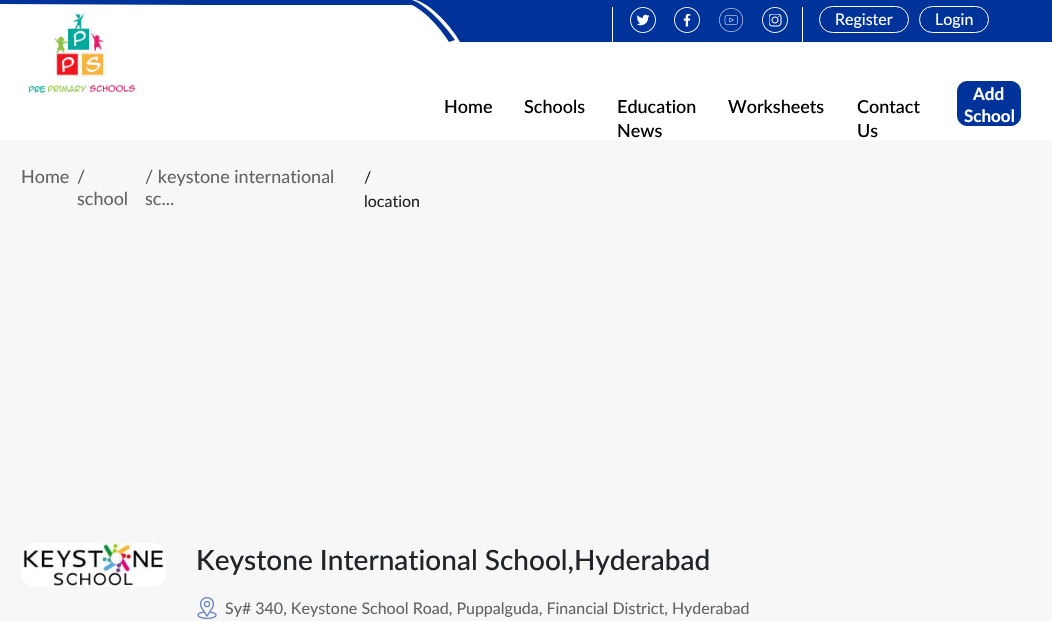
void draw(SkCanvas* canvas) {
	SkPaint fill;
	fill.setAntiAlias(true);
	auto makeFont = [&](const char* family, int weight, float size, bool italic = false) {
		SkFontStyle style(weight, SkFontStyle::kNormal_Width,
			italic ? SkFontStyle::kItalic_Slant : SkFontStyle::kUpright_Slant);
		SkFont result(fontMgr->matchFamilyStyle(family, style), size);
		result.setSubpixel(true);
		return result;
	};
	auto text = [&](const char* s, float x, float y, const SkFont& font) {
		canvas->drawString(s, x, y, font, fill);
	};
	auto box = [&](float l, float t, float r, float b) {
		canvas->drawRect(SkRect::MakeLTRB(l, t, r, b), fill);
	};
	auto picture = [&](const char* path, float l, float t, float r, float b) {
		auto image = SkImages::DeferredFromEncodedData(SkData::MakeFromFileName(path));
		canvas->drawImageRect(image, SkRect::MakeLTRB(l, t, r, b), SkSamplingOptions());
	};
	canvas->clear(0xFFFFFFFF);
	fill.setColor(0xFF003399);
	canvas->drawPath(SkPathBuilder().moveTo(412, 0).lineTo(0, 0).lineTo(0, 4).lineTo(205, 5).lineTo(412, 5).cubicTo(428, 13, 443, 32, 449, 42).lineTo(455, 40).cubicTo(436, 13, 419, 2, 412, 0).close().detach(), fill);
	canvas->drawPath(SkPathBuilder().moveTo(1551, 0).lineTo(415, 0).cubicTo(431, 3, 453, 29, 460, 42).lineTo(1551, 42).close().detach(), fill);
	fill.setColor(0xFFFFFFFF);
	box(612, 7, 613, 42);
	picture("image0.png", 630, 7, 656, 33);
	picture("image1.png", 674, 7, 700, 33);
	picture("image2.png", 719, 8, 744, 32);
	picture("image3.png", 762, 7, 788, 33);
	box(802, 7, 803, 42);
	fill.setStyle(SkPaint::kStroke_Style);
	fill.setStrokeWidth(1);
	canvas->drawRoundRect(SkRect::MakeLTRB(819.5f, 6.5f, 908.5f, 32.5f), 13, 13, fill);
	canvas->drawRoundRect(SkRect::MakeLTRB(919.5f, 6.5f, 988.5f, 32.5f), 13, 13, fill);
	picture("image4.png", 28, 13, 137, 94);
	fill.setStyle(SkPaint::kFill_Style);
	fill.setColor(0xFF003399);
	canvas->drawRoundRect(SkRect::MakeLTRB(957.5f, 81.5f, 1020.5f, 125.5f), 9.5f, 9.5f, fill);
	fill.setStyle(SkPaint::kStroke_Style);
	canvas->drawRoundRect(SkRect::MakeLTRB(957.5f, 81.5f, 1020.5f, 125.5f), 9.5f, 9.5f, fill);
	fill.setStyle(SkPaint::kFill_Style);
	fill.setColor(0xFFF7F7F7);
	box(0, 140, 1052, 621);
	picture("image5.png", 21, 543, 166, 587);
	picture("image6.png", 197, 597, 217, 619);
	auto font1 = makeFont("Lato", 400, 16);
	fill.setColor(0xFFFFFFFF);
	text("Register", 835, 25, font1);
	text("Login", 935, 25, font1);
	auto font2 = makeFont("Lato", 500, 18);
	fill.setColor(0xFF000000);
	text("Home", 444, 113, font2);
	text("Schools", 524, 113, font2);
	text("Education", 617, 113, font2);
	text("News", 617, 137, font2);
	text("Worksheets", 728, 113, font2);
	text("Contact", 857, 113, font2);
	text("Us", 857, 137, font2);
	auto font3 = makeFont("Lato", 700, 17);
	fill.setColor(0xFFFFFFFF);
	text("Add", 973, 100, font3);
	text("School", 964, 122, font3);
	auto font4 = makeFont("Lato", 400, 18);
	fill.setColor(0xFF636363);
	text("Home", 21, 183, font4);
	text("/", 77, 183, font4);
	text("school", 77, 205, font4);
	text("/ keystone international", 145, 183, font4);
	text("sc...", 145, 205, font4);
	fill.setColor(0xFF212529);
	text("/", 364, 183, font1);
	text("location", 364, 207, font1);
	auto font5 = makeFont("Lato", 500, 28);
	text("Keystone International School,Hyderabad", 196, 570, font5);
	fill.setColor(0xFF636363);
	text("Sy# 340, Keystone School Road, Puppalguda, Financial District, Hyderabad", 225, 614, font1);
}
